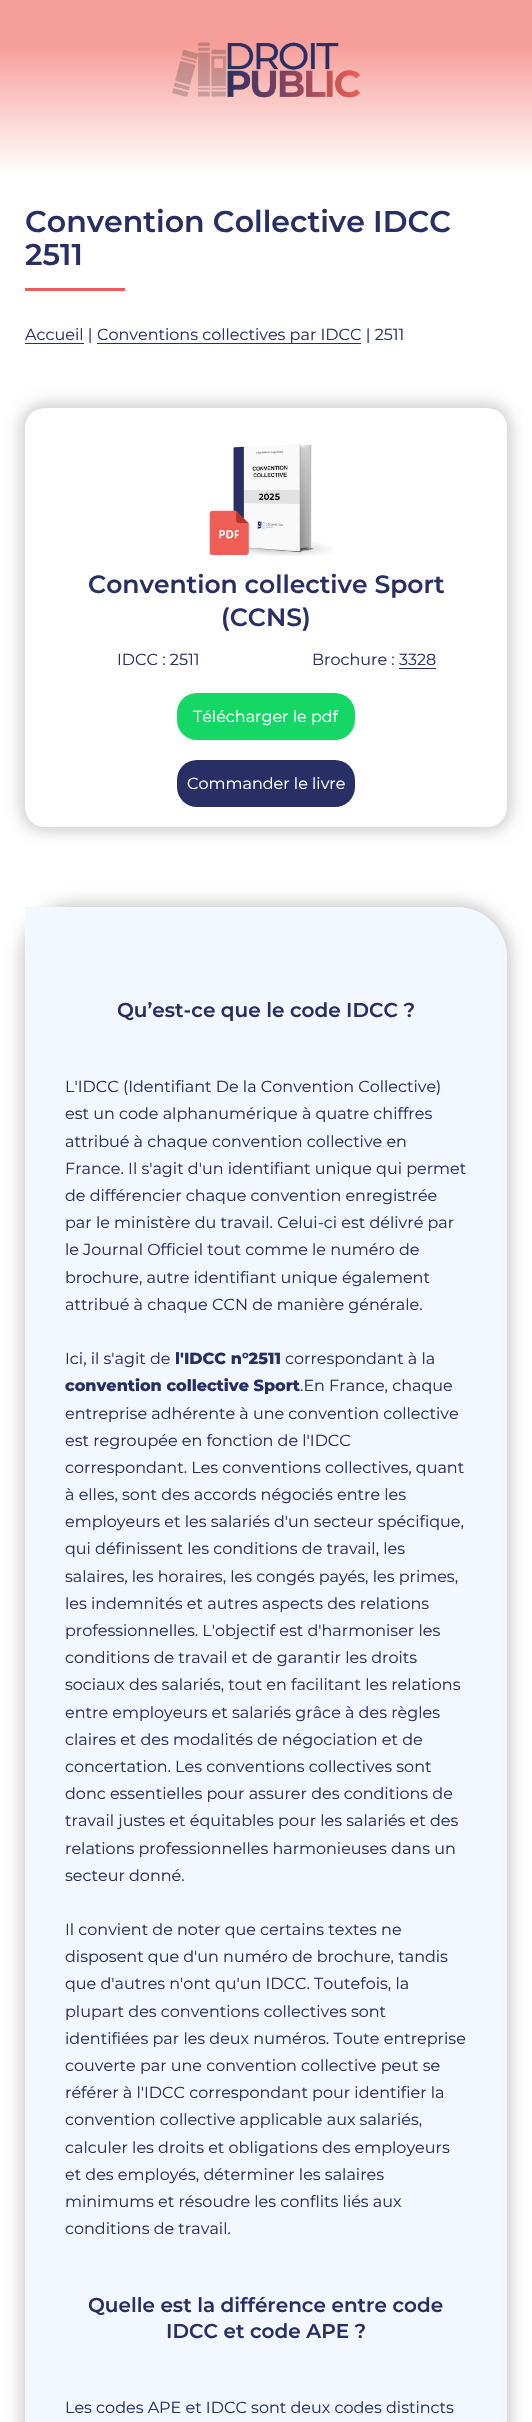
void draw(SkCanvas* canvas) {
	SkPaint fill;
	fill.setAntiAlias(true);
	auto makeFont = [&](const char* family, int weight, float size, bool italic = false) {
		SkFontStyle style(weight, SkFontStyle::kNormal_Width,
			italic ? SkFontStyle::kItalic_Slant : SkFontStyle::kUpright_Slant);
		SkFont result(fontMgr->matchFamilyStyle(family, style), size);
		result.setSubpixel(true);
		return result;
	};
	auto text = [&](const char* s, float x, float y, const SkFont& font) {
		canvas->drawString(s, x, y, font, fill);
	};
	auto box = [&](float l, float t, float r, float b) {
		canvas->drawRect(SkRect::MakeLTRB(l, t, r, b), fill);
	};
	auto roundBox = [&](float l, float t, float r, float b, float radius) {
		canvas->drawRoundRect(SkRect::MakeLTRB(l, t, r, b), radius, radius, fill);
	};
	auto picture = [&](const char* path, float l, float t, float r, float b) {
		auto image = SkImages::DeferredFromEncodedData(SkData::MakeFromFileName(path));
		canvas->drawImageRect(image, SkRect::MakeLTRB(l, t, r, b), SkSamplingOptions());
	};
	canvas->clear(0xFFFFFFFF);
	{
		const SkColor colors[] = {0xFFF69F9A, 0xFFFFFFFF};
		const float stops[] = {0.26f, 1};
		const SkPoint ends[] = {{266, 0}, {266, 175}};
		fill.setShader(SkGradientShader::MakeLinear(ends, colors, stops, 2, SkTileMode::kClamp));
		fill.setAlpha(255);
	}
	box(0, 0, 532, 172);
	picture("image0.png", 172, 42, 360, 98);
	fill.setShader(nullptr);
	fill.setColor(0xFFEF5E56);
	box(25, 288, 125, 291);
	fill.setColor(0xFF272F64);
	box(25, 343, 84, 344);
	box(97, 343, 361, 344);
	fill.setColor(0x33000000);
	fill.setMaskFilter(SkMaskFilter::MakeBlur(kNormal_SkBlurStyle, 7.5f));
	canvas->drawRoundRect(SkRect::MakeLTRB(21, 404, 511, 831), 24, 24, fill);
	fill.setMaskFilter(nullptr);
	fill.setColor(0xFFFFFFFF);
	roundBox(25, 408, 507, 827, 20);
	picture("image1.png", 209, 444, 333, 556);
	fill.setColor(0xFF272F64);
	box(399, 668, 436, 669);
	fill.setColor(0xFF15D766);
	roundBox(177, 693, 355, 740, 20);
	fill.setColor(0xFF272F64);
	roundBox(177, 760, 355, 807, 20);
	fill.setColor(0x33000000);
	fill.setMaskFilter(SkMaskFilter::MakeBlur(kNormal_SkBlurStyle, 7.5f));
	canvas->drawRoundRect(SkRect::MakeLTRB(21, 903, 511, 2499), 54, 54, fill);
	fill.setMaskFilter(nullptr);
	fill.setColor(0xFFF3F7FF);
	canvas->drawPath(SkPathBuilder().moveTo(25, 907).lineTo(457, 907).cubicTo(484.5f, 907, 507, 929.5f, 507, 957).lineTo(507, 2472).lineTo(75, 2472).cubicTo(47.5f, 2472, 25, 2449.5f, 25, 2422).close().detach(), fill);
	auto font1 = makeFont("Montserrat", 600, 30);
	fill.setColor(0xFF272F64);
	text("Convention Collective IDCC", 25, 232, font1);
	text("2511", 25, 265, font1);
	auto font2 = makeFont("Montserrat", 400, 16);
	text("Accueil |", 25, 340, font2);
	text("Conventions collectives par IDCC | 2511", 97, 340, font2);
	auto font3 = makeFont("Montserrat", 600, 25);
	text("Convention collective Sport", 88, 593, font3);
	text("(CCNS)", 221, 626, font3);
	text("IDCC : 2511", 117, 665, font2);
	text("Brochure : 3328", 312, 665, font2);
	fill.setColor(0xFFFFFFFF);
	text("Télécharger le pdf", 193, 722, font2);
	text("Commander le livre", 187, 789, font2);
	auto font4 = makeFont("Montserrat", 600, 20);
	fill.setColor(0xFF272F64);
	text("Qu’est-ce que le code IDCC ?", 117, 1017, font4);
	text("L'IDCC (Identifiant De la Convention Collective)", 65, 1092, font2);
	text("est un code alphanumérique à quatre chiffres", 65, 1119, font2);
	text("attribué à chaque convention collective en", 65, 1147, font2);
	text("France. Il s'agit d'un identifiant unique qui permet", 65, 1174, font2);
	text("de différencier chaque convention enregistrée", 65, 1201, font2);
	text("par le ministère du travail. Celui-ci est délivré par", 65, 1228, font2);
	text("le Journal Officiel tout comme le numéro de", 65, 1255, font2);
	text("brochure, autre identifiant unique également", 65, 1283, font2);
	text("attribué à chaque CCN de manière générale.", 65, 1310, font2);
	text("Ici, il s'agit de", 65, 1364, font2);
	auto font5 = makeFont("Montserrat", 800, 16);
	text("l'IDCC n°2511", 175, 1364, font5);
	text("correspondant à la", 285, 1364, font2);
	text("convention collective Sport", 65, 1391, font5);
	text(".En France, chaque", 300, 1391, font2);
	text("entreprise adhérente à une convention collective", 65, 1419, font2);
	text("est regroupée en fonction de l'IDCC", 65, 1446, font2);
	text("correspondant. Les conventions collectives, quant", 65, 1473, font2);
	text("à elles, sont des accords négociés entre les", 65, 1500, font2);
	text("employeurs et les salariés d'un secteur spécifique,", 65, 1527, font2);
	text("qui définissent les conditions de travail, les", 65, 1554, font2);
	text("salaires, les horaires, les congés payés, les primes,", 65, 1582, font2);
	text("les indemnités et autres aspects des relations", 65, 1609, font2);
	text("professionnelles. L'objectif est d'harmoniser les", 65, 1636, font2);
	text("conditions de travail et de garantir les droits", 65, 1663, font2);
	text("sociaux des salariés, tout en facilitant les relations", 65, 1690, font2);
	text("entre employeurs et salariés grâce à des règles", 65, 1718, font2);
	text("claires et des modalités de négociation et de", 65, 1745, font2);
	text("concertation. Les conventions collectives sont", 65, 1772, font2);
	text("donc essentielles pour assurer des conditions de", 65, 1799, font2);
	text("travail justes et équitables pour les salariés et des", 65, 1826, font2);
	text("relations professionnelles harmonieuses dans un", 65, 1854, font2);
	text("secteur donné.", 65, 1881, font2);
	text("Il convient de noter que certains textes ne", 65, 1935, font2);
	text("disposent que d'un numéro de brochure, tandis", 65, 1962, font2);
	text("que d'autres n'ont qu'un IDCC. Toutefois, la", 65, 1989, font2);
	text("plupart des conventions collectives sont", 65, 2017, font2);
	text("identifiées par les deux numéros. Toute entreprise", 65, 2044, font2);
	text("couverte par une convention collective peut se", 65, 2071, font2);
	text("référer à l'IDCC correspondant pour identifier la", 65, 2098, font2);
	text("convention collective applicable aux salariés,", 65, 2125, font2);
	text("calculer les droits et obligations des employeurs", 65, 2153, font2);
	text("et des employés, déterminer les salaires", 65, 2180, font2);
	text("minimums et résoudre les conflits liés aux", 65, 2207, font2);
	text("conditions de travail.", 65, 2234, font2);
	text("Quelle est la différence entre code", 88, 2312, font4);
	text("IDCC et code APE ?", 166, 2338, font4);
	text("Les codes APE et IDCC sont deux codes distincts", 65, 2413, font2);
}
